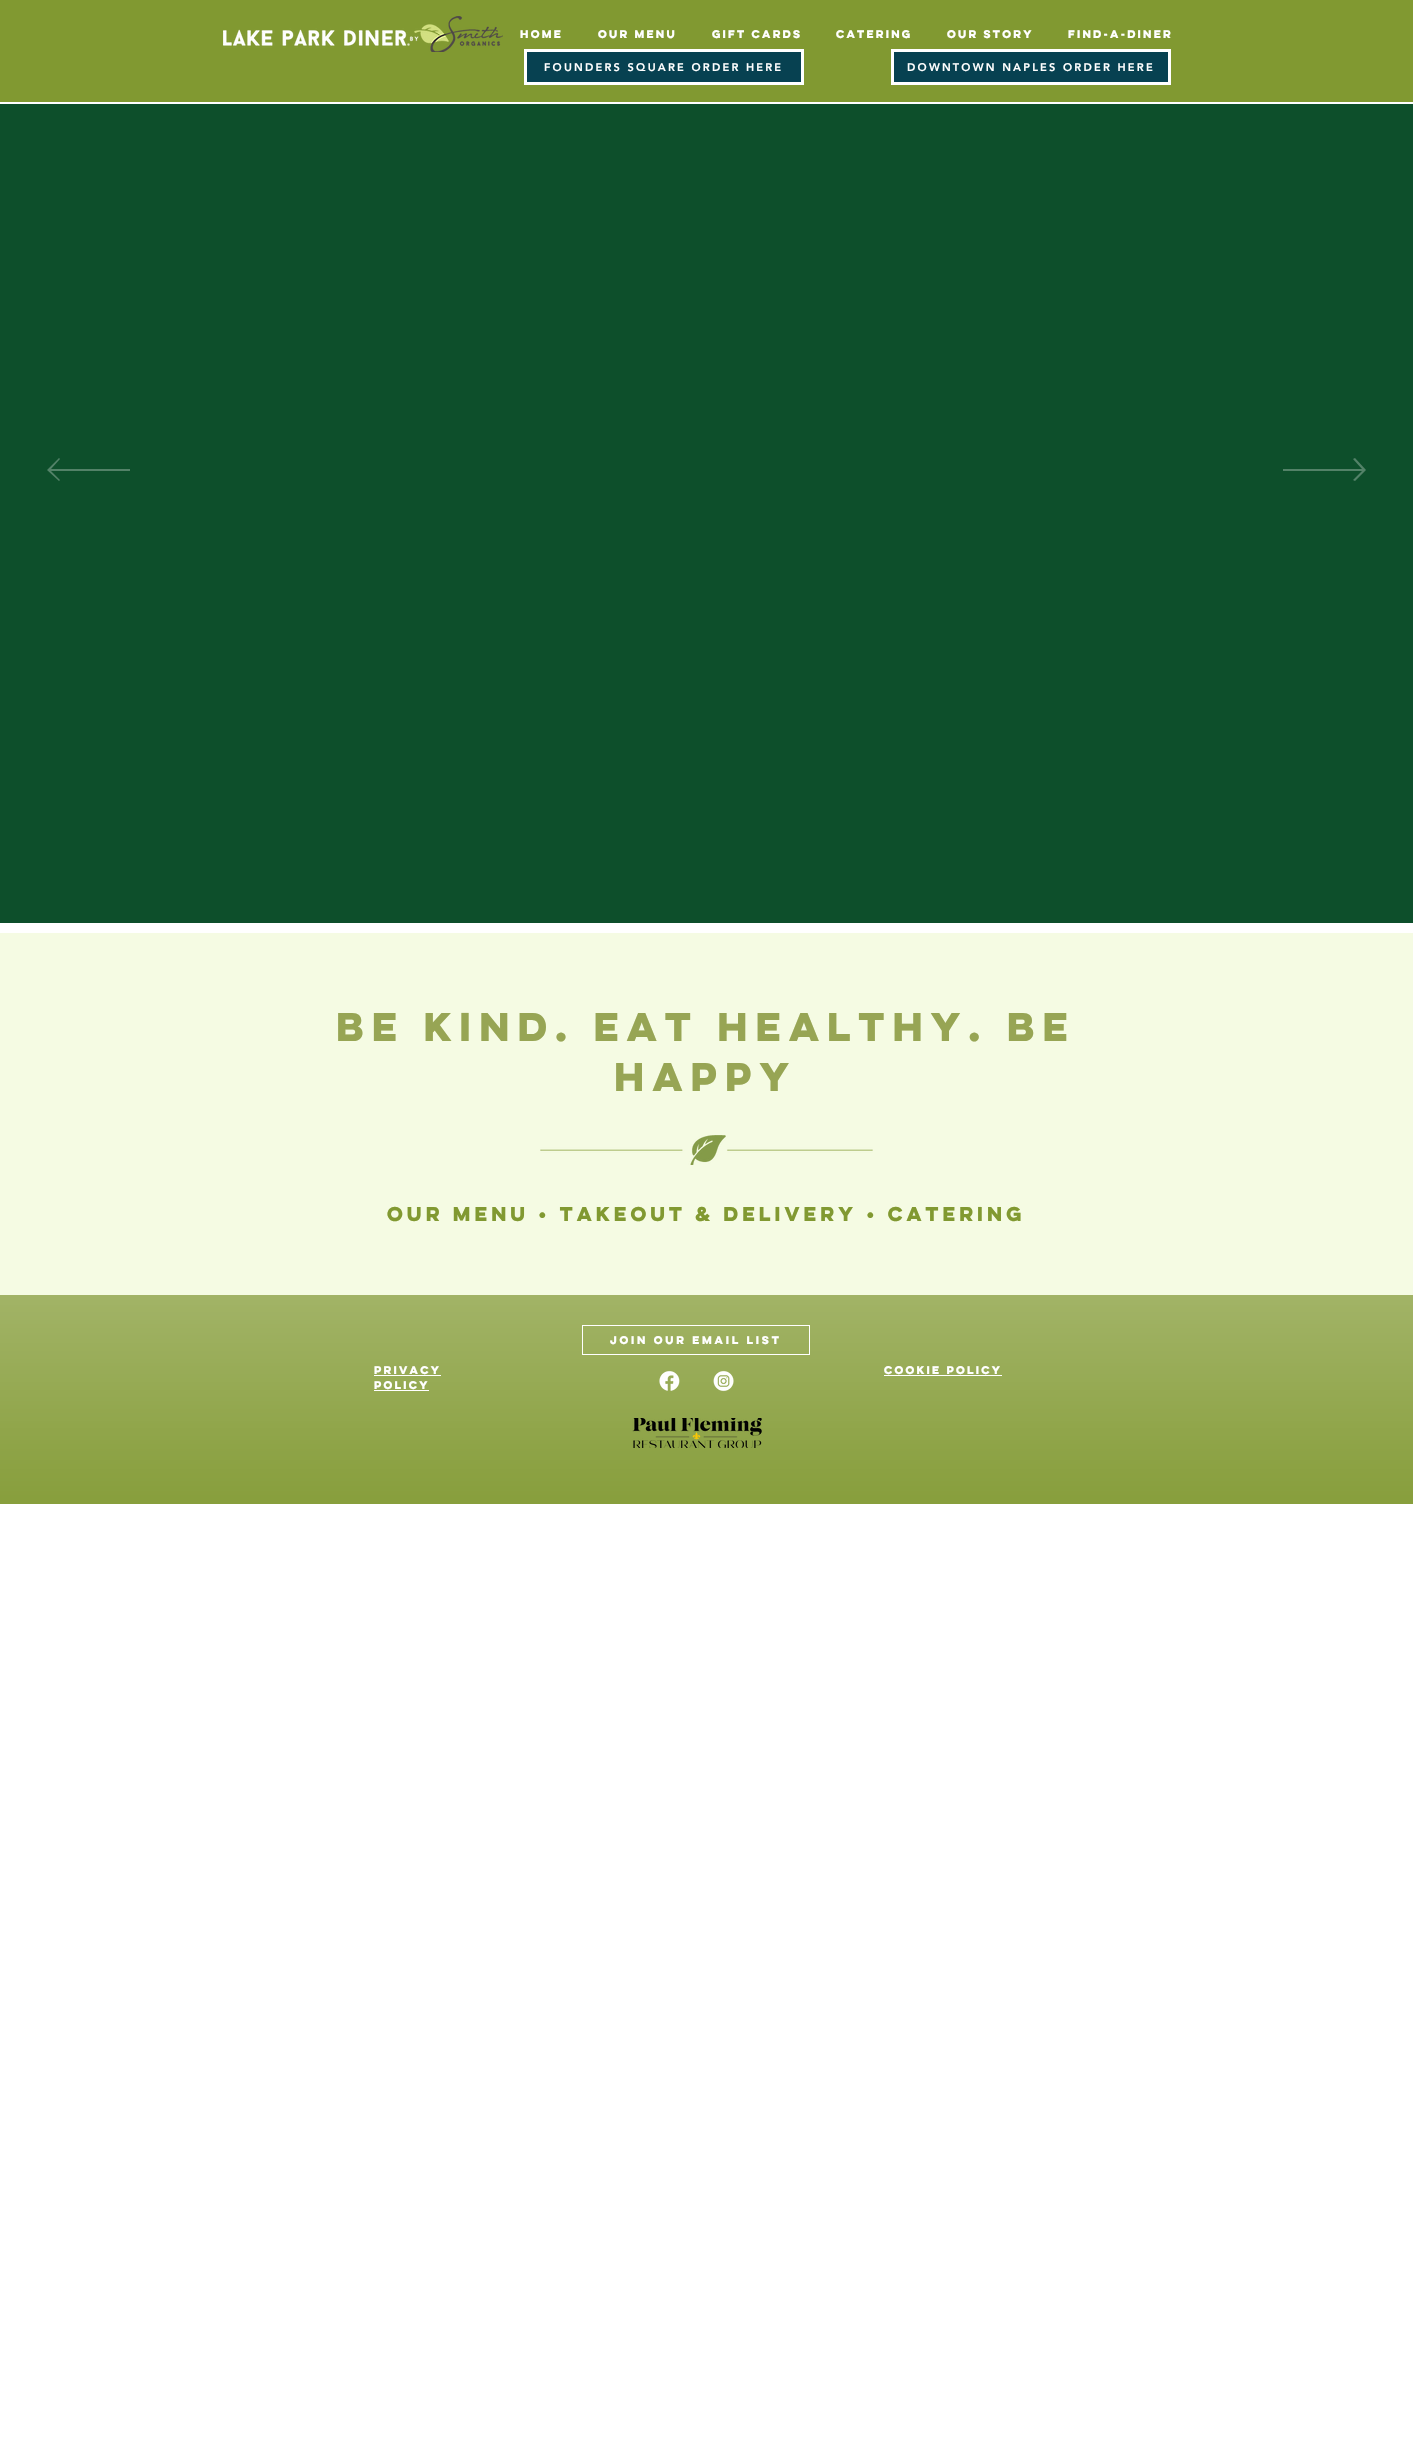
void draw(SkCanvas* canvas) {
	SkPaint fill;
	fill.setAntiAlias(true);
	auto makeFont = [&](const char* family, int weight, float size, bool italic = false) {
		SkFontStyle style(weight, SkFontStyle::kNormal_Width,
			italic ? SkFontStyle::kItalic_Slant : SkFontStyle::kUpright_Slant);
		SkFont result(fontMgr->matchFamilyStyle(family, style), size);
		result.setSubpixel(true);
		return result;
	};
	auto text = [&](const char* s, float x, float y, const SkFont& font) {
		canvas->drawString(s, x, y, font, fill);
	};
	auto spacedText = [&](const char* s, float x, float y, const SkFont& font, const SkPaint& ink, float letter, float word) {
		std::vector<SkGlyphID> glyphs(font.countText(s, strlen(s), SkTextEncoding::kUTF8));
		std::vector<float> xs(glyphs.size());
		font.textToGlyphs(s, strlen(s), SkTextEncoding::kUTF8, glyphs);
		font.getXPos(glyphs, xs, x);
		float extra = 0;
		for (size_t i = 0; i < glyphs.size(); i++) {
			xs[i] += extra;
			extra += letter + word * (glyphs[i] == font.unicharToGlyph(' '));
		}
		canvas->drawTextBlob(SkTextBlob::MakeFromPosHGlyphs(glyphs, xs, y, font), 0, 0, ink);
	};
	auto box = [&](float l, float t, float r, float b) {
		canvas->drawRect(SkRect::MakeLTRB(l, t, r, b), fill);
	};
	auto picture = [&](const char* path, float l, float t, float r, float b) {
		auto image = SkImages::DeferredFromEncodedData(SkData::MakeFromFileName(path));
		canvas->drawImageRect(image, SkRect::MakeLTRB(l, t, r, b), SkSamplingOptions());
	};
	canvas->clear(0xFFFFFFFF);
	fill.setColor(0xFF819931);
	box(0, 0, 1413, 102);
	picture("image0.png", 223, 16, 503, 52);
	fill.setColor(0xFF074151);
	canvas->drawRect(SkRect::MakeLTRB(525.5f, 50.5f, 802.5f, 83.5f), fill);
	fill.setStyle(SkPaint::kStroke_Style);
	fill.setStrokeWidth(3);
	fill.setColor(0xFFFFFFFF);
	canvas->drawRect(SkRect::MakeLTRB(525.5f, 50.5f, 802.5f, 83.5f), fill);
	fill.setStyle(SkPaint::kFill_Style);
	fill.setColor(0xFF074151);
	canvas->drawRect(SkRect::MakeLTRB(892.5f, 50.5f, 1169.5f, 83.5f), fill);
	fill.setStyle(SkPaint::kStroke_Style);
	fill.setColor(0xFFFFFFFF);
	canvas->drawRect(SkRect::MakeLTRB(892.5f, 50.5f, 1169.5f, 83.5f), fill);
	fill.setStyle(SkPaint::kFill_Style);
	fill.setColor(0xFF0D4F2B);
	box(0, 104, 1413, 923);
	fill.setColor(0xFF538268);
	canvas->drawPath(SkPathBuilder().moveTo(59, 458).lineTo(60, 459).lineTo(51, 469).lineTo(130, 469).lineTo(130, 471).lineTo(51, 471).lineTo(60, 480).lineTo(59, 481).lineTo(47, 470).close().detach(), fill);
	canvas->drawPath(SkPathBuilder().moveTo(1355, 458).lineTo(1353, 459).lineTo(1362, 469).lineTo(1283, 469).lineTo(1283, 471).lineTo(1362, 471).lineTo(1353, 480).lineTo(1355, 481).lineTo(1366, 470).close().detach(), fill);
	fill.setColor(0xFFF5FBE3);
	box(0, 933, 1413, 1295);
	picture("image1.png", 540, 1135, 873, 1165);
	fill.setColor(0xFF819931);
	box(0, 1295, 1413, 1504);
	picture("image2.png", 0, 1295, 1413, 1504);
	fill.setStyle(SkPaint::kStroke_Style);
	fill.setStrokeWidth(1);
	fill.setColor(0xFFFFFFFF);
	canvas->drawRect(SkRect::MakeLTRB(582.5f, 1325.5f, 809.5f, 1354.5f), fill);
	fill.setStyle(SkPaint::kFill_Style);
	box(374, 1375, 441, 1376);
	box(374, 1390, 429, 1391);
	picture("image3.png", 659, 1370, 680, 1391);
	picture("image4.png", 713, 1370, 734, 1392);
	box(884, 1375, 1002, 1376);
	picture("image5.png", 632, 1418, 762, 1448);
	auto font1 = makeFont("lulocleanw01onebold", 700, 10);
	text("Home", 520, 38, font1);
	text("Our Menu", 598, 38, font1);
	text("Gift Cards", 712, 38, font1);
	text("Catering", 836, 38, font1);
	text("Our Story", 947, 38, font1);
	text("Find-A-Diner", 1068, 38, font1);
	auto font2 = makeFont("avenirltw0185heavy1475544", 900, 11);
	spacedText("FOUNDERS SQUARE ORDER HERE", 544, 71, font2, fill, 2.2f, 0);
	spacedText("DOWNTOWN NAPLES ORDER HERE", 907, 71, font2, fill, 2.2f, 0);
	auto font3 = makeFont("lulocleanw01onebold", 700, 36);
	fill.setColor(0xFF97A554);
	text("BE KIND. EAT HEALTHY. BE", 336, 1041, font3);
	text("HAPPY", 614, 1091, font3);
	auto font4 = makeFont("lulocleanw01onebold", 700, 18);
	fill.setColor(0xFF819931);
	text("OUR MENU • TAKEOUT & DELIVERY • CATERING", 387, 1221, font4);
	fill.setColor(0xFFFFFFFF);
	spacedText("JOIN OUR EMAIL LIST", 610, 1344, font1, fill, 0.5f, 0);
	text("PRIVACY", 374, 1374, font1);
	text("POLICY", 374, 1389, font1);
	text("Cookie Policy", 884, 1374, font1);
}
